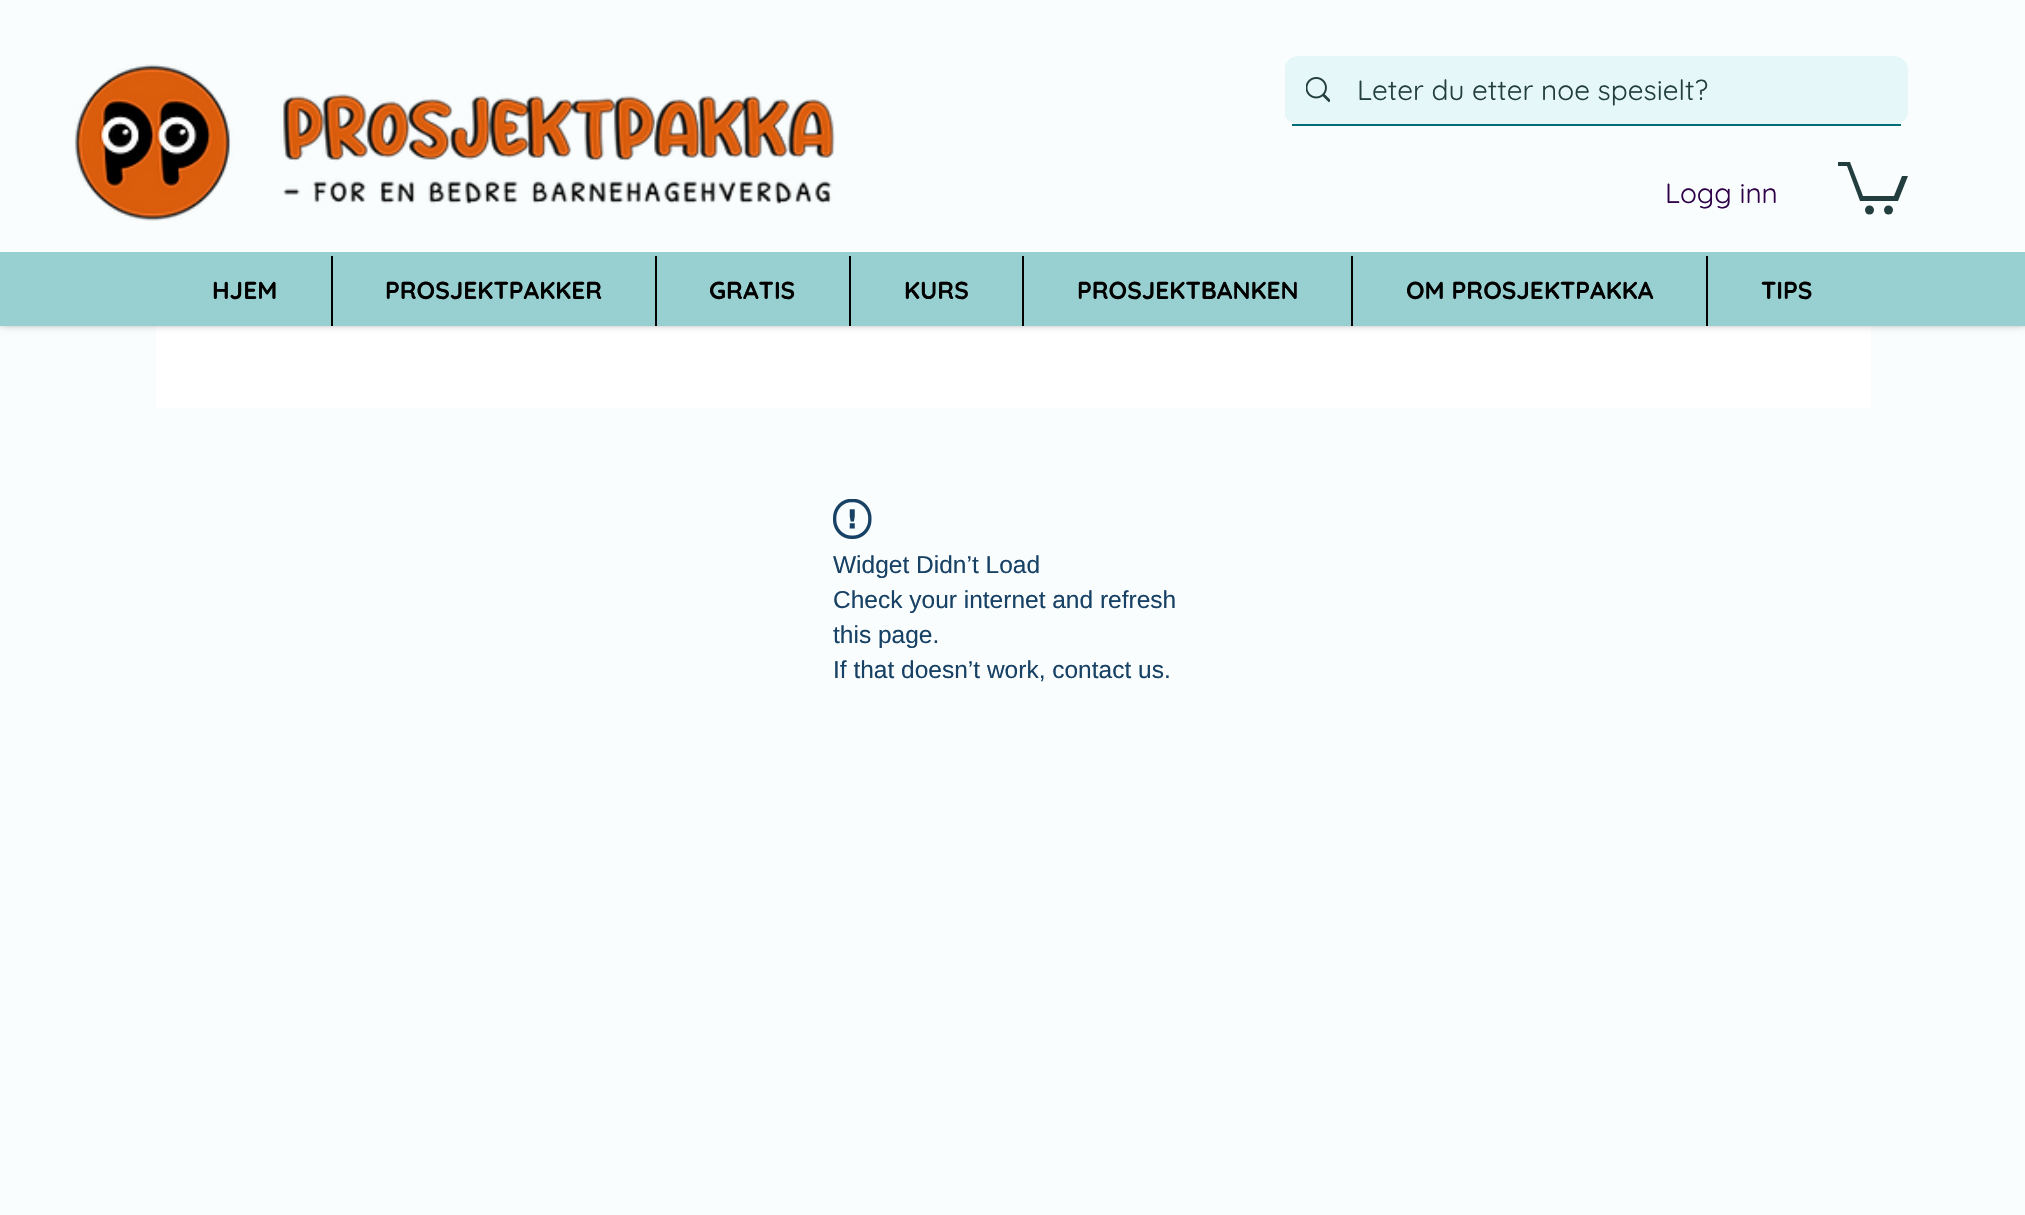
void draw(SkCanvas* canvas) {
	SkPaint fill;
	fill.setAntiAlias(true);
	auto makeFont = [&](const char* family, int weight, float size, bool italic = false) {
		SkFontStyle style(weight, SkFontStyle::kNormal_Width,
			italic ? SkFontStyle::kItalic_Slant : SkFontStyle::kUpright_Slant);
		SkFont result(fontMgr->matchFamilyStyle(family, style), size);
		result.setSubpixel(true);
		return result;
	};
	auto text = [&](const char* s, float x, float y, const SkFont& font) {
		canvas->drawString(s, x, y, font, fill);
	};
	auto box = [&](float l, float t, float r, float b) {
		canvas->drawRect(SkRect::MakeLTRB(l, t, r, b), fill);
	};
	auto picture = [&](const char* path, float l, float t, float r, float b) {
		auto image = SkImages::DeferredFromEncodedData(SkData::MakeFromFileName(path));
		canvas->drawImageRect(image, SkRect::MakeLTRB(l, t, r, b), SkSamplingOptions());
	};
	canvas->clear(0xFFFAFDFD);
	fill.setColor(0xFFFFFFFF);
	box(156, 326, 1871, 408);
	fill.setColor(0xB3000000);
	fill.setMaskFilter(SkMaskFilter::MakeBlur(kNormal_SkBlurStyle, 4.5f));
	canvas->drawRect(SkRect::MakeLTRB(0, 0, 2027, 322), fill);
	fill.setMaskFilter(nullptr);
	fill.setColor(0xFFFAFDFD);
	box(0, 0, 2025, 252);
	picture("image0.png", 74, 64, 835, 221);
	fill.setColor(0xFF006D77);
	box(1292, 124, 1901, 126);
	fill.setColor(0xFFE5F7F8);
	canvas->drawPath(SkPathBuilder().moveTo(1298, 56).cubicTo(1292, 56, 1287, 60, 1285, 66).lineTo(1285, 115).cubicTo(1286, 120, 1291, 123, 1296, 124).lineTo(1896, 124).cubicTo(1903, 123, 1908, 118, 1908, 112).lineTo(1908, 70).cubicTo(1908, 62, 1901, 56, 1894, 56).close().detach(), fill);
	picture("image1.png", 1306, 77, 1330, 103);
	fill.setColor(0xFF223E3F);
	canvas->drawPath(SkPathBuilder().moveTo(1908, 176).lineTo(1898, 201).lineTo(1860, 201).lineTo(1847, 166).lineTo(1838, 166).lineTo(1838, 162).lineTo(1850, 162).lineTo(1863, 196).lineTo(1894, 196).lineTo(1902, 176).detach(), fill);
	canvas->drawCircle(1888.5f, 210, 4.5f, fill);
	canvas->drawCircle(1869.5f, 210, 4.5f, fill);
	fill.setColor(0xFF98D0D1);
	box(0, 252, 2025, 326);
	fill.setColor(0xFF000000);
	box(331, 256, 333, 326);
	box(655, 256, 657, 326);
	box(849, 256, 851, 326);
	box(1022, 256, 1024, 326);
	box(1351, 256, 1353, 326);
	box(1706, 256, 1708, 326);
	picture("image2.png", 833, 499, 872, 539);
	auto font1 = makeFont("Quicksand", 400, 28);
	fill.setColor(0xFF223E3F);
	text("Leter du etter noe spesielt?", 1357, 100, font1);
	fill.setColor(0xFF2E0149);
	text("Logg inn", 1665, 203, font1);
	auto font2 = makeFont("Quicksand", 700, 24.5f);
	fill.setColor(0xFF000000);
	text("HJEM", 212, 299, font2);
	text("PROSJEKTPAKKER", 385, 299, font2);
	text("GRATIS", 709, 299, font2);
	text("KURS", 904, 299, font2);
	text("PROSJEKTBANKEN", 1077, 299, font2);
	text("OM PROSJEKTPAKKA", 1406, 299, font2);
	text("TIPS", 1761, 299, font2);
	auto font3 = makeFont("Liberation Sans", 400, 24.5f);
	fill.setColor(0xFF174165);
	text("Widget Didn’t Load", 833, 573, font3);
	text("Check your internet and refresh", 833, 608, font3);
	text("this page.", 833, 643, font3);
	text("If that doesn’t work, contact us.", 833, 678, font3);
}
